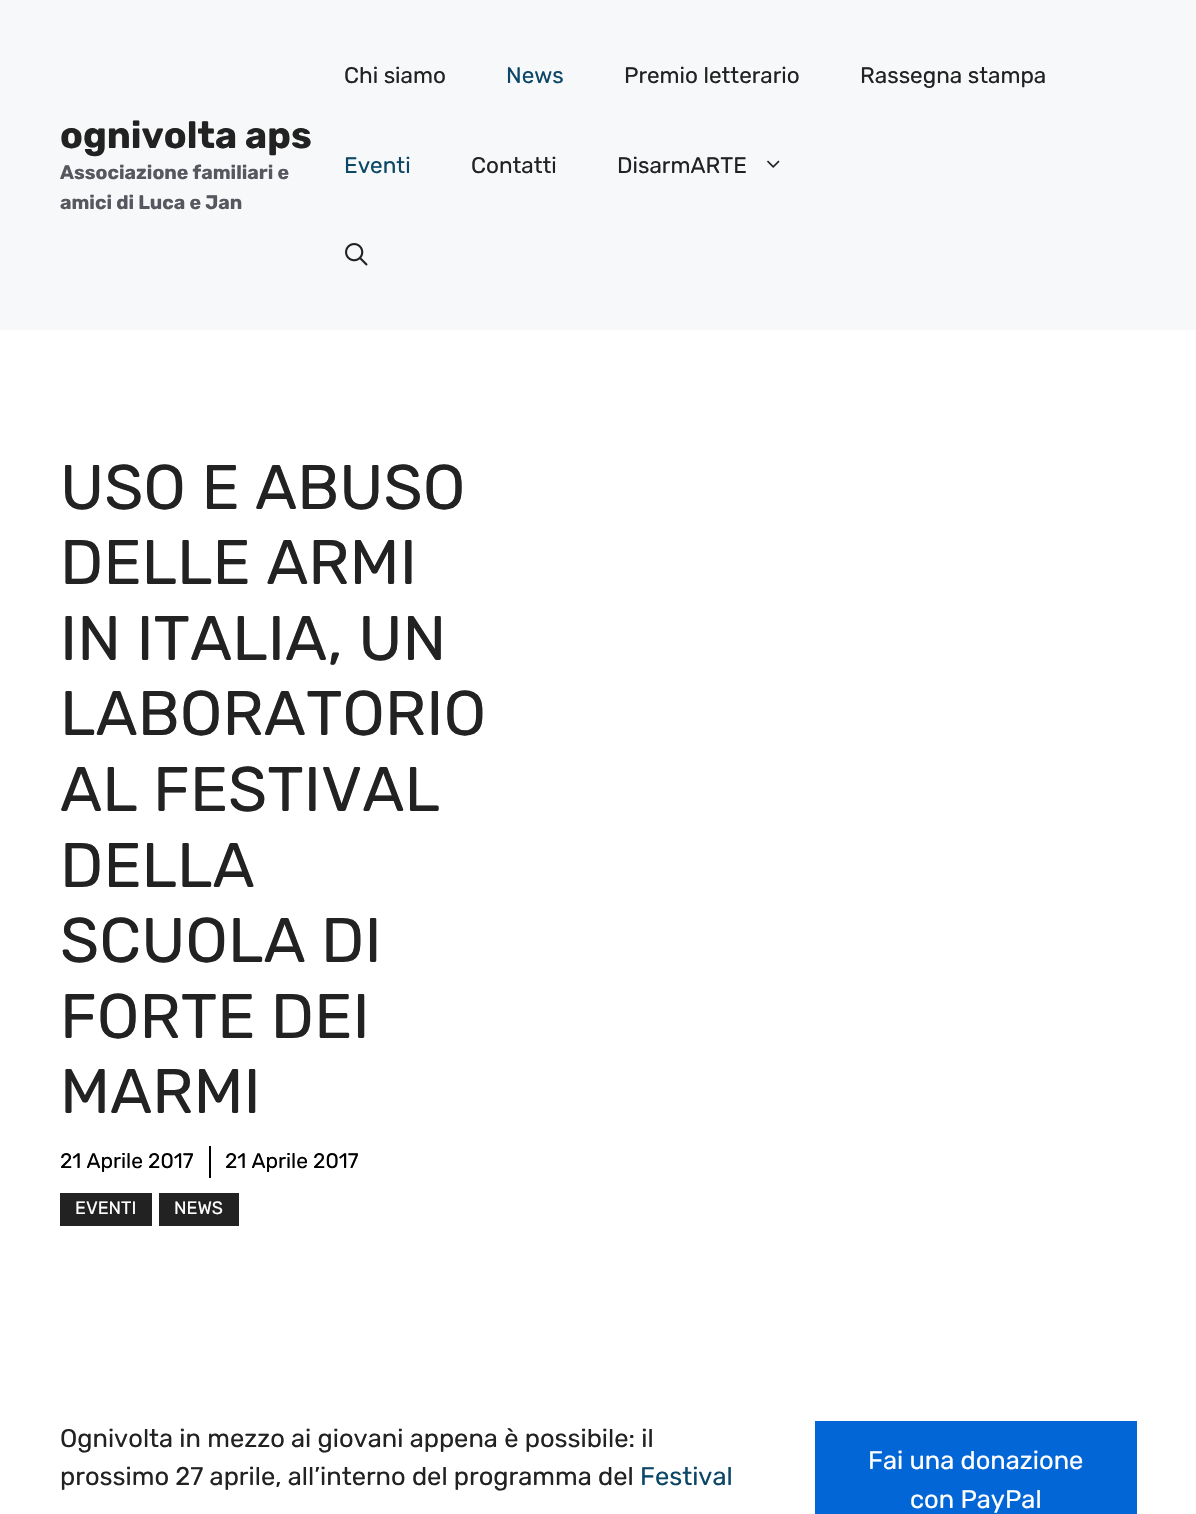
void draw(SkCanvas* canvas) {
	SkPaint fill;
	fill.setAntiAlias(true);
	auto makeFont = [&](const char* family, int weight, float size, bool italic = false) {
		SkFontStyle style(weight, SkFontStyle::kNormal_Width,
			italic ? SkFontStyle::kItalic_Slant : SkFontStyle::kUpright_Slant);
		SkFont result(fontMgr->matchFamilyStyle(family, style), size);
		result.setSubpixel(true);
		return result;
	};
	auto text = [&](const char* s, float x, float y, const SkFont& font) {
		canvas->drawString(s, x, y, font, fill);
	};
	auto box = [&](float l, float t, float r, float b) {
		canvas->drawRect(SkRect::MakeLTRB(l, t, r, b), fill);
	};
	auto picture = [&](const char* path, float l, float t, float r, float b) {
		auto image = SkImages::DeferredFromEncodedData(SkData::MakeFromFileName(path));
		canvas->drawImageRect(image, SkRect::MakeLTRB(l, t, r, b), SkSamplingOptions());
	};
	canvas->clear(0xFFFFFFFF);
	fill.setColor(0xFFF7F8F9);
	box(0, 0, 1196, 330);
	picture("image0.png", 767, 160, 780, 168);
	picture("image1.png", 345, 243, 368, 266);
	fill.setColor(0xFF000000);
	box(209, 1146, 211, 1178);
	fill.setColor(0xFF222222);
	box(60, 1193, 152, 1226);
	box(159, 1193, 239, 1226);
	fill.setColor(0xFF0366D6);
	box(815, 1421, 1137, 1514);
	auto font1 = makeFont("Rubik", 700, 37.5f);
	fill.setColor(0xFF222222);
	text("ognivolta aps", 60, 148, font1);
	auto font2 = makeFont("Rubik", 700, 19.5f);
	fill.setColor(0xFF575760);
	text("Associazione familiari e", 60, 179, font2);
	text("amici di Luca e Jan", 60, 209, font2);
	auto font3 = makeFont("Rubik", 400, 22.5f);
	fill.setColor(0xFF222222);
	text("Chi siamo", 344, 83, font3);
	fill.setColor(0xFF0C4767);
	text("News", 506, 83, font3);
	fill.setColor(0xFF222222);
	text("Premio letterario", 624, 83, font3);
	text("Rassegna stampa", 860, 83, font3);
	fill.setColor(0xFF0C4767);
	text("Eventi", 344, 173, font3);
	fill.setColor(0xFF222222);
	text("Contatti", 471, 173, font3);
	text("DisarmARTE", 617, 173, font3);
	auto font4 = makeFont("Rubik", 400, 63);
	text("USO E ABUSO", 60, 509, font4);
	text("DELLE ARMI", 60, 584, font4);
	text("IN ITALIA, UN", 60, 660, font4);
	text("LABORATORIO", 60, 735, font4);
	text("AL FESTIVAL", 60, 811, font4);
	text("DELLA", 60, 887, font4);
	text("SCUOLA DI", 60, 962, font4);
	text("FORTE DEI", 60, 1038, font4);
	text("MARMI", 60, 1113, font4);
	auto font5 = makeFont("Rubik", 400, 21);
	fill.setColor(0xFF000000);
	text("21 Aprile 2017", 60, 1168, font5);
	text("21 Aprile 2017", 225, 1168, font5);
	auto font6 = makeFont("Rubik", 400, 18);
	fill.setColor(0xFFFFFFFF);
	text("EVENTI", 75, 1214, font6);
	text("NEWS", 174, 1214, font6);
	auto font7 = makeFont("Rubik", 400, 25.5f);
	fill.setColor(0xFF222222);
	text("Ognivolta in mezzo ai giovani appena è possibile: il", 60, 1447, font7);
	text("prossimo 27 aprile, all’interno del programma del", 60, 1485, font7);
	fill.setColor(0xFF0C4767);
	text("Festival", 640, 1485, font7);
	fill.setColor(0xFFFFFFFF);
	text("Fai una donazione", 868, 1469, font7);
	text("con PayPal", 910, 1508, font7);
}
